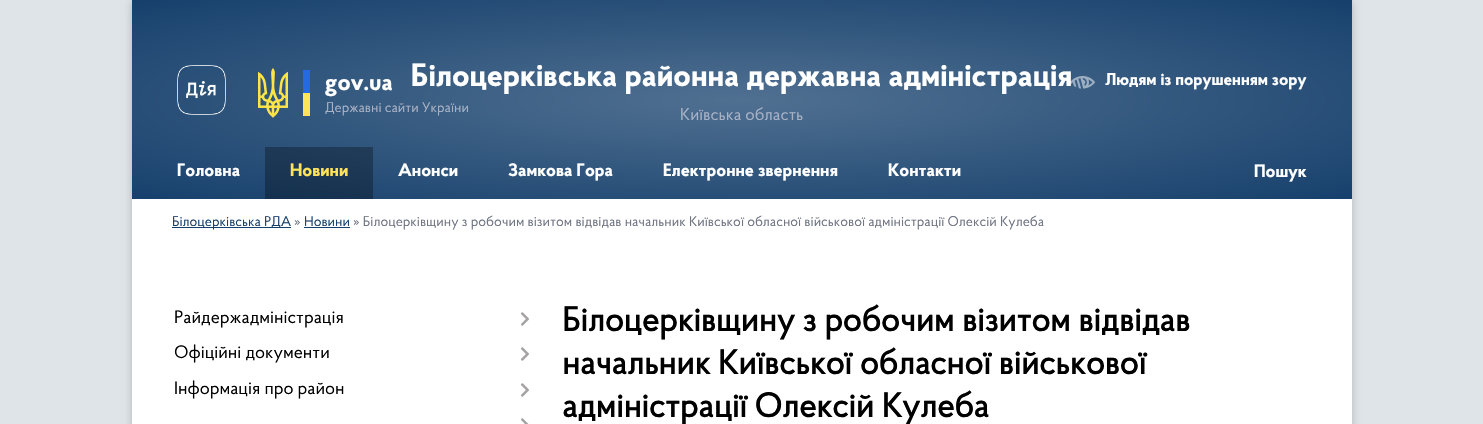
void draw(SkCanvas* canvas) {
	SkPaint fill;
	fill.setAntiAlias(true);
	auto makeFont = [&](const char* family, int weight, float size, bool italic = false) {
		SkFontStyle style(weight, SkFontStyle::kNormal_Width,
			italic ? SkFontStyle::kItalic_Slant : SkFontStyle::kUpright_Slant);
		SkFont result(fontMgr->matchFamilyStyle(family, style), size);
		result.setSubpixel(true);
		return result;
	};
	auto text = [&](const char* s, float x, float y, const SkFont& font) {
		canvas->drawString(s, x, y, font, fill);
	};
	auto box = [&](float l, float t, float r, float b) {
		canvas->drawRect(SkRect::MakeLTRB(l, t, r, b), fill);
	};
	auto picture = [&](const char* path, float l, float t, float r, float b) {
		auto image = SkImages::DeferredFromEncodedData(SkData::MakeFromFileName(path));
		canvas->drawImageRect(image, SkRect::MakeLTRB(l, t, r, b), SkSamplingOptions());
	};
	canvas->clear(0xFFDEE4E7);
	fill.setColor(0x33000000);
	fill.setMaskFilter(SkMaskFilter::MakeBlur(kNormal_SkBlurStyle, 4));
	canvas->drawRect(SkRect::MakeLTRB(132, 1, 1352, 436), fill);
	fill.setMaskFilter(nullptr);
	fill.setColor(0xFFFFFFFF);
	box(132, 199, 1352, 424);
	{
		const SkColor colors[] = {0xFF507091, 0xFF16406C};
		const float stops[] = {0, 1};
		SkMatrix m = SkMatrix::Translate(742, 100).preScale(863, 141);
		fill.setShader(SkGradientShader::MakeRadial({0, 0}, 1, colors, stops, 2, SkTileMode::kClamp, 0, &m));
		fill.setAlpha(255);
	}
	box(132, 0, 1352, 199);
	{
		const SkColor colors[] = {0xFF384E66, 0xFF0F2D4C};
		const float stops[] = {0, 1};
		SkMatrix m = SkMatrix::Translate(742, 100).preScale(863, 141);
		fill.setShader(SkGradientShader::MakeRadial({0, 0}, 1, colors, stops, 2, SkTileMode::kClamp, 0, &m));
		fill.setAlpha(255);
	}
	box(265, 147, 373, 199);
	picture("image0.png", 177, 65, 226, 115);
	picture("image1.png", 258, 68, 288, 118);
	fill.setShader(nullptr);
	fill.setColor(0xFF2669E3);
	box(303, 70, 310, 93);
	fill.setColor(0xFFFFE358);
	box(303, 93, 310, 116);
	fill.setColor(0xFF16406C);
	box(172, 227, 291, 228);
	box(304, 227, 350, 228);
	picture("image3.png", 520, 312, 529, 326);
	picture("image3.png", 520, 347, 529, 361);
	picture("image3.png", 520, 383, 529, 397);
	picture("image4.png", 520, 418, 529, 424);
	auto font1 = makeFont("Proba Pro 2", 700, 24);
	fill.setColor(0xFFFFFFFF);
	text("gov.ua", 325, 90, font1);
	auto font2 = makeFont("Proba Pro", 400, 14);
	fill.setColor(0xFFAAB3C6);
	text("Державні сайти України", 325, 112, font2);
	auto font3 = makeFont("Proba Pro 2", 700, 32);
	fill.setColor(0xFFFFFFFF);
	text("Білоцерківська районна державна адміністрація", 411, 86, font3);
	auto font4 = makeFont("Proba Pro", 400, 17);
	fill.setColor(0xFFAAB3C6);
	text("Київська область", 680, 120, font4);
	picture("image2.png", 1070, 76, 1095, 89);
	auto font5 = makeFont("Proba Pro 2", 700, 17);
	fill.setColor(0xFFFFFFFF);
	text("Людям із порушенням зору", 1105, 85, font5);
	auto font6 = makeFont("Proba Pro 2", 700, 18);
	text("Головна", 177, 176, font6);
	fill.setColor(0xFFFFE358);
	text("Новини", 290, 176, font6);
	fill.setColor(0xFFFFFFFF);
	text("Анонси", 398, 176, font6);
	text("Замкова Гора", 508, 176, font6);
	text("Електронне звернення", 663, 176, font6);
	text("Контакти", 888, 176, font6);
	text("Пошук", 1254, 177, font6);
	fill.setColor(0xFF16406C);
	text("Білоцерківська РДА", 172, 226, font2);
	fill.setColor(0xFF6D7381);
	text("»", 294, 226, font2);
	fill.setColor(0xFF16406C);
	text("Новини", 304, 226, font2);
	fill.setColor(0xFF6D7381);
	text("» Білоцерківщину з робочим візитом відвідав начальник Київської обласної військової адміністрації Олексій Кулеба", 353, 226, font2);
	auto font7 = makeFont("Proba Pro", 400, 18);
	fill.setColor(0xFF000000);
	text("Райдержадміністрація", 174, 323, font7);
	text("Офіційні документи", 174, 358, font7);
	text("Інформація про район", 174, 394, font7);
	auto font8 = makeFont("Proba Pro", 700, 34);
	text("Білоцерківщину з робочим візитом відвідав", 562, 331, font8);
	text("начальник Київської обласної військової", 562, 374, font8);
	text("адміністрації Олексій Кулеба", 562, 417, font8);
}
